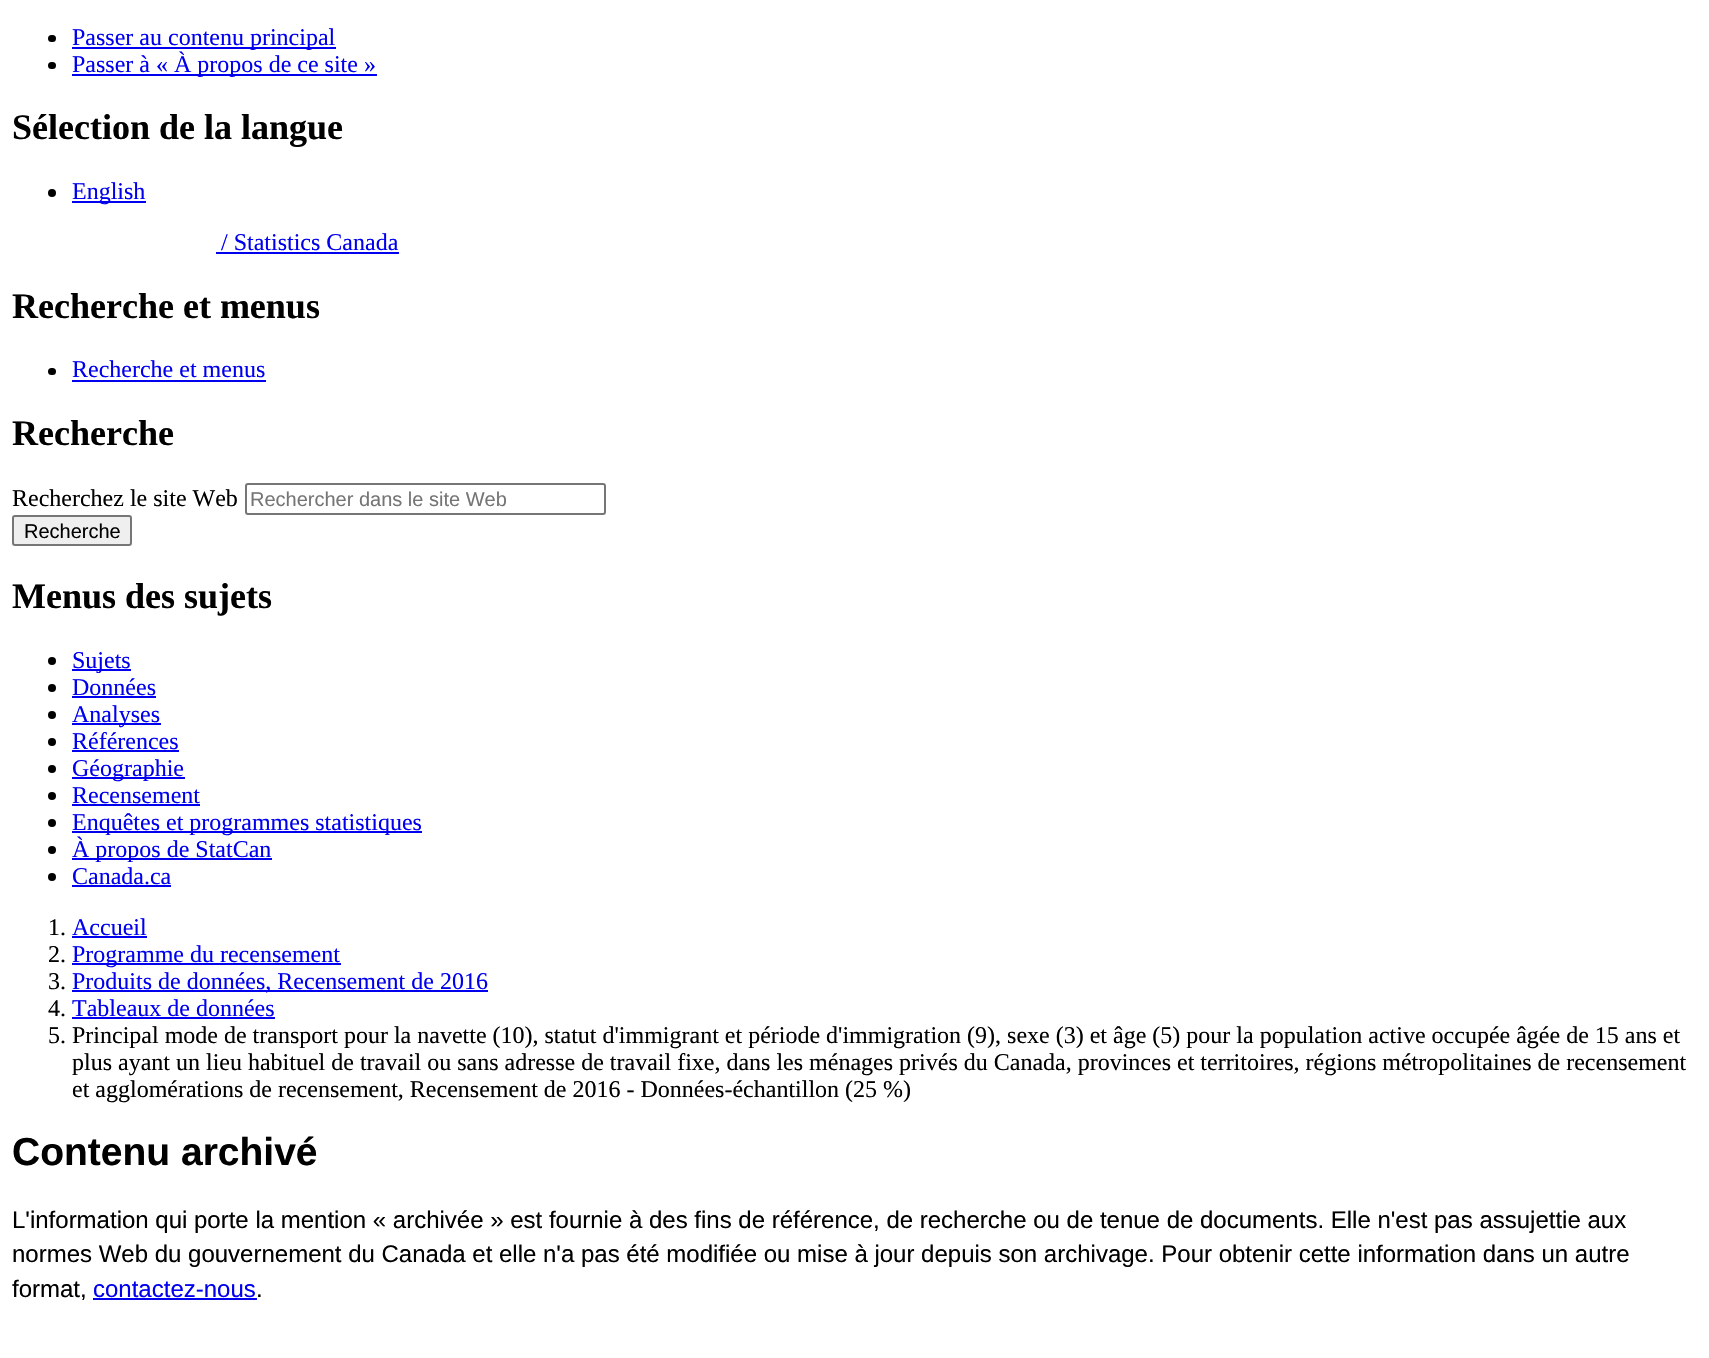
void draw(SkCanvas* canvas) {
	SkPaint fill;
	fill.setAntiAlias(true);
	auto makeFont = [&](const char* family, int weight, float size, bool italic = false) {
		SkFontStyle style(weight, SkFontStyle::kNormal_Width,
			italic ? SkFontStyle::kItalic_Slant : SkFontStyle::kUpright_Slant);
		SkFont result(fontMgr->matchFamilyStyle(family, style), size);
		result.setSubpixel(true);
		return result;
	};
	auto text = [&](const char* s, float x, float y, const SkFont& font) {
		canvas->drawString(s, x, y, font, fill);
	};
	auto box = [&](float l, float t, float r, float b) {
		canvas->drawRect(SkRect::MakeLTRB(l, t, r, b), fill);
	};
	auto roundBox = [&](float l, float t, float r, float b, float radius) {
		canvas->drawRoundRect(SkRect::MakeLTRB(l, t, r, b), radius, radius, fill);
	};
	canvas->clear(0xFFFFFFFF);
	fill.setColor(0xFF000000);
	roundBox(48, 35, 56, 42, 3.5f);
	fill.setColor(0xFF0000EE);
	box(72, 47, 336, 49);
	fill.setColor(0xFF000000);
	roundBox(48, 62, 56, 69, 3.5f);
	fill.setColor(0xFF0000EE);
	box(72, 74, 377, 76);
	fill.setColor(0xFF000000);
	canvas->drawCircle(52, 193, 4, fill);
	fill.setColor(0xFF0000EE);
	box(72, 201, 146, 203);
	box(216, 252, 399, 254);
	fill.setColor(0xFF000000);
	roundBox(48, 368, 56, 375, 3.5f);
	fill.setColor(0xFF0000EE);
	box(72, 380, 266, 382);
	fill.setStyle(SkPaint::kStroke_Style);
	fill.setStrokeWidth(2);
	fill.setColor(0xFF767676);
	canvas->drawRoundRect(SkRect::MakeLTRB(246, 484, 605, 514), 2, 2, fill);
	fill.setStyle(SkPaint::kFill_Style);
	fill.setColor(0xFFEFEFEF);
	canvas->drawRoundRect(SkRect::MakeLTRB(13, 516, 131, 545), 2, 2, fill);
	fill.setStyle(SkPaint::kStroke_Style);
	fill.setColor(0xFF767676);
	canvas->drawRoundRect(SkRect::MakeLTRB(13, 516, 131, 545), 2, 2, fill);
	fill.setStyle(SkPaint::kFill_Style);
	fill.setColor(0xFF000000);
	canvas->drawCircle(52, 661, 4, fill);
	fill.setColor(0xFF0000EE);
	box(72, 669, 131, 671);
	fill.setColor(0xFF000000);
	canvas->drawCircle(52, 688, 4, fill);
	fill.setColor(0xFF0000EE);
	box(72, 696, 156, 698);
	fill.setColor(0xFF000000);
	canvas->drawCircle(52, 715, 4, fill);
	fill.setColor(0xFF0000EE);
	box(72, 723, 161, 725);
	fill.setColor(0xFF000000);
	canvas->drawCircle(52, 742, 4, fill);
	fill.setColor(0xFF0000EE);
	box(72, 750, 179, 752);
	fill.setColor(0xFF000000);
	canvas->drawCircle(52, 769, 4, fill);
	fill.setColor(0xFF0000EE);
	box(72, 777, 185, 779);
	fill.setColor(0xFF000000);
	canvas->drawCircle(52, 796, 4, fill);
	fill.setColor(0xFF0000EE);
	box(72, 804, 200, 806);
	fill.setColor(0xFF000000);
	canvas->drawCircle(52, 823, 4, fill);
	fill.setColor(0xFF0000EE);
	box(72, 831, 422, 833);
	fill.setColor(0xFF000000);
	canvas->drawCircle(52, 850, 4, fill);
	fill.setColor(0xFF0000EE);
	box(72, 858, 272, 860);
	fill.setColor(0xFF000000);
	canvas->drawCircle(52, 877, 4, fill);
	fill.setColor(0xFF0000EE);
	box(72, 885, 171, 887);
	box(72, 936, 147, 938);
	box(72, 963, 341, 965);
	box(72, 990, 488, 992);
	box(72, 1017, 275, 1019);
	box(93, 1298, 257, 1300);
	auto font1 = makeFont("Liberation Serif", 400, 24);
	text("Passer au contenu principal", 72, 45, font1);
	text("Passer à « À propos de ce site »", 72, 72, font1);
	auto font2 = makeFont("Liberation Serif", 700, 36);
	fill.setColor(0xFF000000);
	text("Sélection de la langue", 12, 139, font2);
	fill.setColor(0xFF0000EE);
	text("English", 72, 199, font1);
	text("/ Statistics Canada", 221, 250, font1);
	fill.setColor(0xFF000000);
	text("Recherche et menus", 12, 318, font2);
	fill.setColor(0xFF0000EE);
	text("Recherche et menus", 72, 377, font1);
	fill.setColor(0xFF000000);
	text("Recherche", 12, 445, font2);
	text("Recherchez le site Web", 12, 506, font1);
	auto font3 = makeFont("Liberation Sans", 400, 20);
	fill.setColor(0xFF757575);
	text("Rechercher dans le site Web", 250, 506, font3);
	fill.setColor(0xFF000000);
	text("Recherche", 24, 538, font3);
	text("Menus des sujets", 12, 608, font2);
	fill.setColor(0xFF0000EE);
	text("Sujets", 72, 668, font1);
	text("Données", 72, 695, font1);
	text("Analyses", 72, 722, font1);
	text("Références", 72, 749, font1);
	text("Géographie", 72, 776, font1);
	text("Recensement", 72, 803, font1);
	text("Enquêtes et programmes statistiques", 72, 830, font1);
	text("À propos de StatCan", 72, 857, font1);
	text("Canada.ca", 72, 884, font1);
	fill.setColor(0xFF000000);
	text("1.", 48, 935, font1);
	fill.setColor(0xFF0000EE);
	text("Accueil", 72, 935, font1);
	fill.setColor(0xFF000000);
	text("2.", 48, 962, font1);
	fill.setColor(0xFF0000EE);
	text("Programme du recensement", 72, 962, font1);
	fill.setColor(0xFF000000);
	text("3.", 48, 989, font1);
	fill.setColor(0xFF0000EE);
	text("Produits de données, Recensement de 2016", 72, 989, font1);
	fill.setColor(0xFF000000);
	text("4.", 48, 1016, font1);
	fill.setColor(0xFF0000EE);
	text("Tableaux de données", 72, 1016, font1);
	fill.setColor(0xFF000000);
	text("5. Principal mode de transport pour la navette (10), statut d'immigrant et période d'immigration (9), sexe (3) et âge (5) pour la population active occupée âgée de 15 ans et", 48, 1043, font1);
	text("plus ayant un lieu habituel de travail ou sans adresse de travail fixe, dans les ménages privés du Canada, provinces et territoires, régions métropolitaines de recensement", 72, 1070, font1);
	text("et agglomérations de recensement, Recensement de 2016 - Données-échantillon (25 %)", 72, 1097, font1);
	auto font4 = makeFont("Liberation Sans", 700, 39);
	text("Contenu archivé", 12, 1165, font4);
	auto font5 = makeFont("Liberation Sans", 400, 24);
	text("L'information qui porte la mention « archivée » est fournie à des fins de référence, de recherche ou de tenue de documents. Elle n'est pas assujettie aux", 12, 1228, font5);
	text("normes Web du gouvernement du Canada et elle n'a pas été modifiée ou mise à jour depuis son archivage. Pour obtenir cette information dans un autre", 12, 1262, font5);
	text("format,", 12, 1297, font5);
	fill.setColor(0xFF0000EE);
	text("contactez-nous", 93, 1297, font5);
	fill.setColor(0xFF000000);
	text(".", 256, 1297, font5);
}
